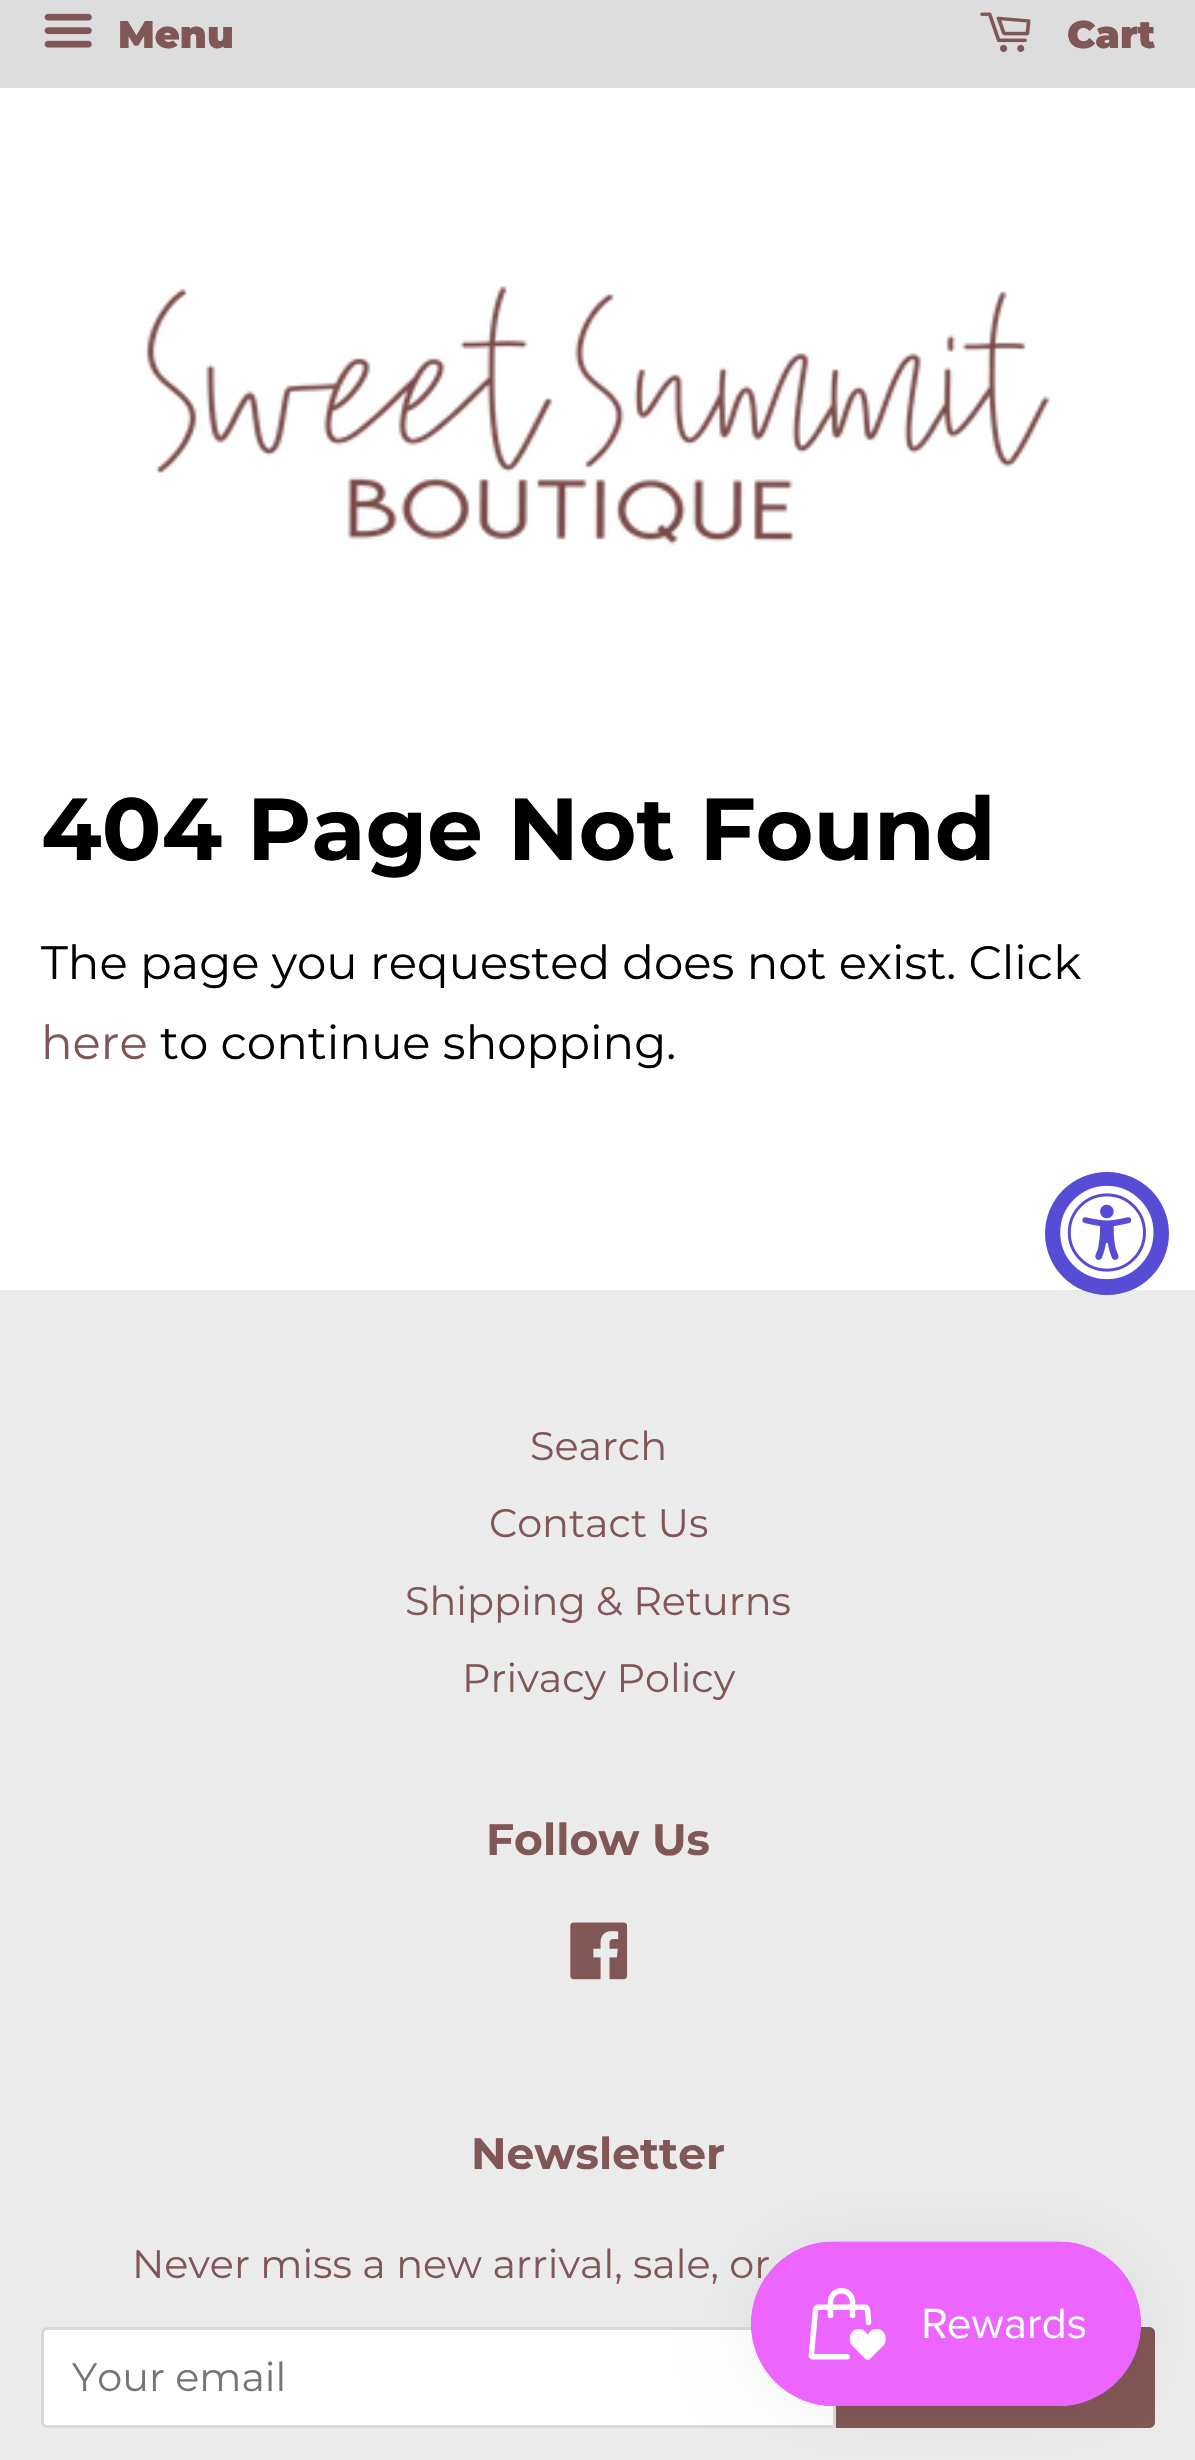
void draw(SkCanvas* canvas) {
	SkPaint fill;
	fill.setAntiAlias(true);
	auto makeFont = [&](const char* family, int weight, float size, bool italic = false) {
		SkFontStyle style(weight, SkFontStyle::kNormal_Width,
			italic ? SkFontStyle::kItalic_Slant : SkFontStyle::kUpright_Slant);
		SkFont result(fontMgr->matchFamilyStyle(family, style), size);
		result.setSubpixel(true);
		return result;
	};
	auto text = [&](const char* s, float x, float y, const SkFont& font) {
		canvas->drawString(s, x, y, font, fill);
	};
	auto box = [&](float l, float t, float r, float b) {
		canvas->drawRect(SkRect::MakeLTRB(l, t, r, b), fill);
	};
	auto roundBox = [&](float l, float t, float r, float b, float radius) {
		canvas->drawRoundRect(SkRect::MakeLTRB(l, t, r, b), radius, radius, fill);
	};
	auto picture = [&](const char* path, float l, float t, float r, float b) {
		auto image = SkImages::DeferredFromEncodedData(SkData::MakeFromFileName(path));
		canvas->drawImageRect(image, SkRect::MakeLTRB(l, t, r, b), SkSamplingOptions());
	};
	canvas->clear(0xFFFFFFFF);
	fill.setColor(0xFFDDDDDD);
	box(0, 0, 1195, 88);
	picture("image0.png", 44, 13, 92, 48);
	picture("image1.png", 980, 12, 1031, 52);
	picture("image2.png", 145, 286, 1050, 545);
	fill.setColor(0xFFEBEBEB);
	box(0, 1290, 1195, 2460);
	fill.setColor(0xFF574CD5);
	roundBox(1045, 1172, 1169, 1295, 61.5f);
	picture("image3.png", 1060, 1185, 1154, 1280);
	picture("image4.png", 570, 1922, 628, 1980);
	fill.setColor(0xFFFFFFFF);
	canvas->drawPath(SkPathBuilder().moveTo(47, 2327).lineTo(836, 2327).lineTo(836, 2428).lineTo(47, 2428).cubicTo(43.5f, 2428, 41, 2425.5f, 41, 2422).lineTo(41, 2333).cubicTo(41, 2329.5f, 43.5f, 2327, 47, 2327).close().detach(), fill);
	fill.setStyle(SkPaint::kStroke_Style);
	fill.setStrokeWidth(3);
	fill.setColor(0x26000000);
	canvas->drawPath(SkPathBuilder().moveTo(47, 2328.5f).lineTo(834.5f, 2328.5f).lineTo(834.5f, 2426.5f).lineTo(47, 2426.5f).cubicTo(44.5f, 2426.5f, 42.5f, 2424.5f, 42.5f, 2422).lineTo(42.5f, 2333).cubicTo(42.5f, 2330.5f, 44.5f, 2328.5f, 47, 2328.5f).close().detach(), fill);
	fill.setStyle(SkPaint::kFill_Style);
	fill.setColor(0xFF815656);
	canvas->drawPath(SkPathBuilder().moveTo(836, 2327).lineTo(1149, 2327).cubicTo(1152.5f, 2327, 1155, 2329.5f, 1155, 2333).lineTo(1155, 2422).cubicTo(1155, 2425.5f, 1152.5f, 2428, 1149, 2428).lineTo(836, 2428).close().detach(), fill);
	fill.setColor(0x0D000000);
	fill.setMaskFilter(SkMaskFilter::MakeBlur(kNormal_SkBlurStyle, 34.5f));
	canvas->drawRoundRect(SkRect::MakeLTRB(751, 2241, 1141, 2406), 82.5f, 82.5f, fill);
	fill.setMaskFilter(nullptr);
	auto font1 = makeFont("Montserrat", 900, 38.5f);
	fill.setColor(0xFF815656);
	text("Menu", 118, 48, font1);
	text("Cart", 1067, 48, font1);
	auto font2 = makeFont("Montserrat", 700, 88);
	fill.setColor(0xFF000000);
	text("404 Page Not Found", 41, 860, font2);
	auto font3 = makeFont("Montserrat", 400, 46.75f);
	text("The page you requested does not exist. Click", 41, 979, font3);
	fill.setColor(0xFF815656);
	text("here", 41, 1059, font3);
	fill.setColor(0xFF000000);
	text("to continue shopping.", 160, 1059, font3);
	auto font4 = makeFont("Montserrat", 400, 39.75f);
	fill.setColor(0xFF815656);
	text("Search", 530, 1460, font4);
	text("Contact Us", 489, 1537, font4);
	text("Shipping & Returns", 405, 1615, font4);
	text("Privacy Policy", 462, 1692, font4);
	auto font5 = makeFont("Montserrat", 700, 44);
	text("Follow Us", 486, 1855, font5);
	text("Newsletter", 471, 2169, font5);
	text("Never miss a new arrival, sale, or", 132, 2278, font4);
	fill.setColor(0xFF757575);
	text("Your email", 72, 2391, font4);
	picture("image5.png", 751, 2241, 1141, 2406);
}
